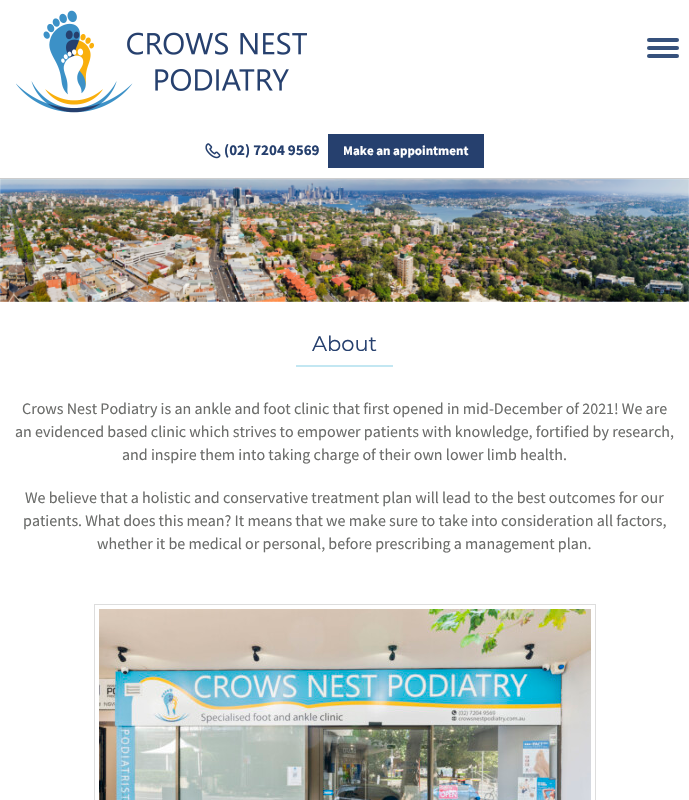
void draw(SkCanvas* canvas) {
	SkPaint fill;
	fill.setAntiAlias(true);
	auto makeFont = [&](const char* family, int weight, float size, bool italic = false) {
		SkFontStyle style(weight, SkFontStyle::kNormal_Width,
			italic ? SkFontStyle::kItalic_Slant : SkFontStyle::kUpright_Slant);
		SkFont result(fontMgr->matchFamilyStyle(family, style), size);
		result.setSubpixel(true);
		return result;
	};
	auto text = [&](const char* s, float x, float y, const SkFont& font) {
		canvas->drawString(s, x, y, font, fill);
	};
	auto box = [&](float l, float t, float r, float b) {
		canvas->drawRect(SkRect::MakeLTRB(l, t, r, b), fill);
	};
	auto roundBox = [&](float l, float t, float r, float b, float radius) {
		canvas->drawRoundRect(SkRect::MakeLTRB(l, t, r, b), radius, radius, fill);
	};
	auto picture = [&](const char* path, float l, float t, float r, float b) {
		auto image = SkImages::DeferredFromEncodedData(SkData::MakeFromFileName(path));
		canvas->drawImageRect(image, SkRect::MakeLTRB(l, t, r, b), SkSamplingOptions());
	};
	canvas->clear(0xFFFFFFFF);
	fill.setColor(0xFFCCCCCC);
	box(0, 178, 689, 179);
	picture("image0.png", 16, 10, 307, 113);
	fill.setColor(0xFF36517C);
	roundBox(647, 38, 679, 42, 2);
	roundBox(647, 46, 679, 50, 2);
	roundBox(647, 54, 679, 58, 2);
	picture("image1.png", 205, 143, 221, 159);
	fill.setColor(0xFF26406E);
	box(328, 134, 484, 168);
	picture("image2.png", 0, 179, 689, 302);
	fill.setColor(0xFFC3E7F2);
	box(296, 365, 393, 367);
	fill.setStyle(SkPaint::kStroke_Style);
	fill.setStrokeWidth(1);
	fill.setColor(0xFFDDDDDD);
	canvas->drawRect(SkRect::MakeLTRB(94.5f, 604.5f, 595.5f, 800.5f), fill);
	picture("image3.png", 99, 609, 591, 800);
	auto font1 = makeFont("Source Sans Pro", 700, 15);
	fill.setStyle(SkPaint::kFill_Style);
	fill.setColor(0xFF26406E);
	text("(02) 7204 9569", 224, 155, font1);
	auto font2 = makeFont("Source Sans Pro", 700, 13);
	fill.setColor(0xFFFFFFFF);
	text("Make an appointment", 343, 155, font2);
	auto font3 = makeFont("Montserrat", 400, 21);
	fill.setColor(0xFF26406E);
	text("About", 312, 351, font3);
	auto font4 = makeFont("Source Sans Pro", 400, 16);
	fill.setColor(0xFF6B6C6A);
	text("Crows Nest Podiatry is an ankle and foot clinic that first opened in mid-December of 2021! We are", 22, 414, font4);
	text("an evidenced based clinic which strives to empower patients with knowledge, fortified by research,", 15, 437, font4);
	text("and inspire them into taking charge of their own lower limb health.", 122, 460, font4);
	text("We believe that a holistic and conservative treatment plan will lead to the best outcomes for our", 25, 503, font4);
	text("patients. What does this mean? It means that we make sure to take into consideration all factors,", 23, 526, font4);
	text("whether it be medical or personal, before prescribing a management plan.", 97, 549, font4);
}
